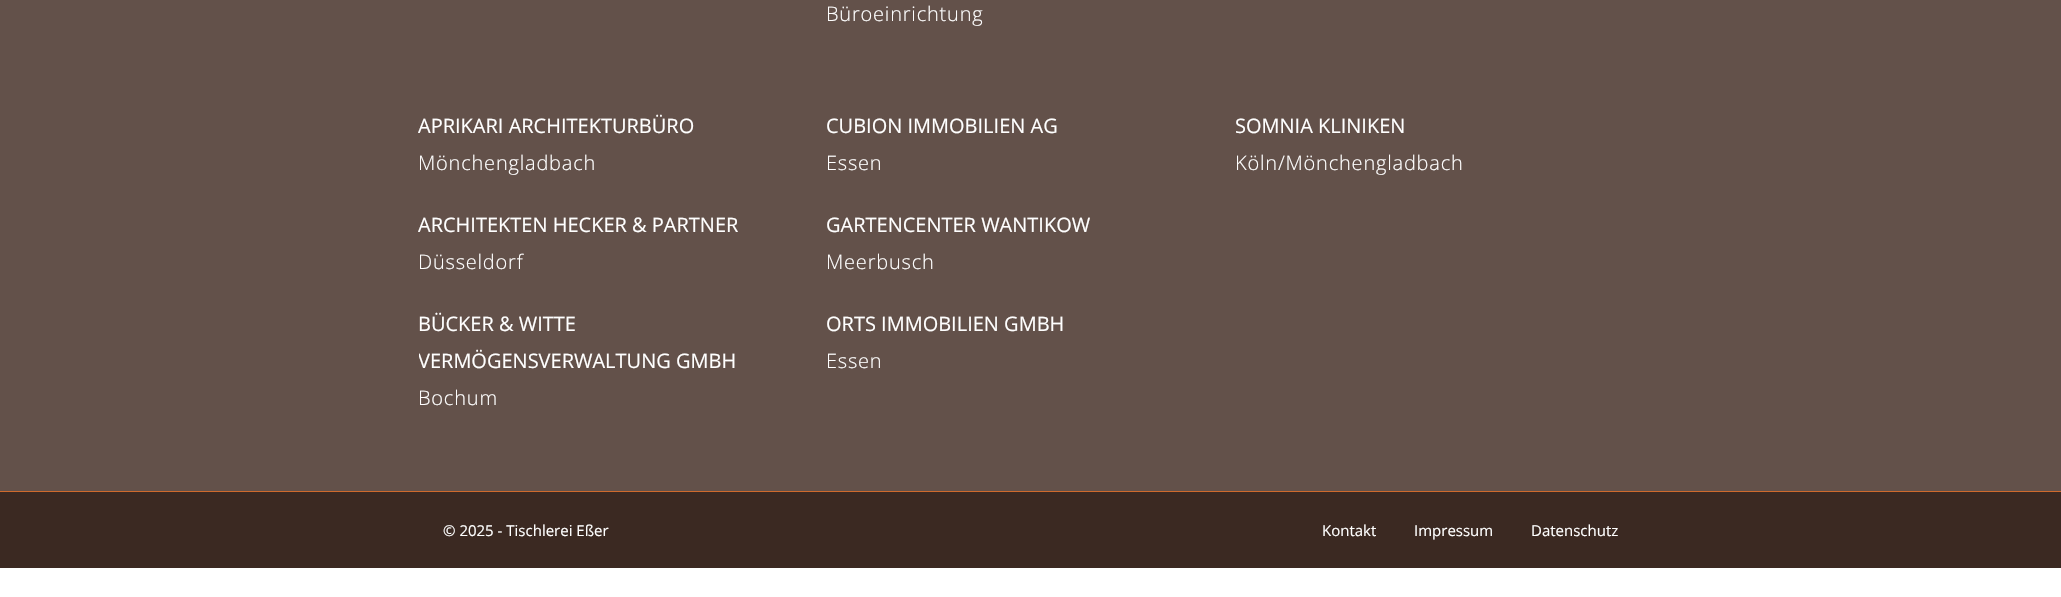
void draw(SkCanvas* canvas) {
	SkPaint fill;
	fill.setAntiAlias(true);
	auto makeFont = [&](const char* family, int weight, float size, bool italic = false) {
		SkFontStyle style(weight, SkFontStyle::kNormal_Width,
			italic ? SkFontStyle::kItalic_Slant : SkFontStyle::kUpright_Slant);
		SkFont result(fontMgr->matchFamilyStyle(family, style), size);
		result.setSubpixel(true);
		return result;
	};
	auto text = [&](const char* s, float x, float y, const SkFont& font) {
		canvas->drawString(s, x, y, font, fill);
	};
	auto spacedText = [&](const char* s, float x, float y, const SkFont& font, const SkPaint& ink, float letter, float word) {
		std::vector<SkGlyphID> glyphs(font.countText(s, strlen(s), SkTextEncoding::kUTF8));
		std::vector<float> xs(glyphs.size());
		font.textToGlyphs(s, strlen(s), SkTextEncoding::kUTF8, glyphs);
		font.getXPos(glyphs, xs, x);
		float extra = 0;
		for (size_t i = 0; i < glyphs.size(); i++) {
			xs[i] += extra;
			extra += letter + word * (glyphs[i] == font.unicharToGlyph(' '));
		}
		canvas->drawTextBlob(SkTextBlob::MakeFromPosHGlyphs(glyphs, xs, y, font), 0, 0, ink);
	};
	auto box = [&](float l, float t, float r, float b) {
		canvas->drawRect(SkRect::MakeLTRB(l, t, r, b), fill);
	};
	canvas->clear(0xFF3B2922);
	fill.setColor(0xFF63514A);
	box(0, 0, 2061, 491);
	fill.setColor(0xFFCF6A2D);
	box(0, 491, 2061, 492);
	fill.setColor(0xFFFFFFFF);
	box(0, 568, 2061, 597);
	auto font1 = makeFont("Open Sans", 300, 20);
	spacedText("Büroeinrichtung", 826, 21, font1, fill, 0.8f, 0);
	auto font2 = makeFont("Open Sans", 400, 20);
	text("APRIKARI ARCHITEKTURBÜRO", 418, 133, font2);
	spacedText("Mönchengladbach", 418, 170, font1, fill, 0.8f, 0);
	text("ARCHITEKTEN HECKER & PARTNER", 418, 232, font2);
	spacedText("Düsseldorf", 418, 269, font1, fill, 0.8f, 0);
	text("BÜCKER & WITTE", 418, 331, font2);
	canvas->save();
	canvas->clipRect(SkRect::MakeLTRB(419, 58, 1644, 441));
	text("VERMÖGENSVERWALTUNG GMBH", 418, 368, font2);
	canvas->restore();
	spacedText("Bochum", 418, 405, font1, fill, 0.8f, 0);
	text("CUBION IMMOBILIEN AG", 826, 133, font2);
	spacedText("Essen", 826, 170, font1, fill, 0.8f, 0);
	text("GARTENCENTER WANTIKOW", 826, 232, font2);
	spacedText("Meerbusch", 826, 269, font1, fill, 0.8f, 0);
	text("ORTS IMMOBILIEN GMBH", 826, 331, font2);
	spacedText("Essen", 826, 368, font1, fill, 0.8f, 0);
	text("SOMNIA KLINIKEN", 1235, 133, font2);
	spacedText("Köln/Mönchengladbach", 1235, 170, font1, fill, 0.8f, 0);
	auto font3 = makeFont("Open Sans", 400, 15);
	text("© 2025 - Tischlerei Eßer", 443, 536, font3);
	text("Kontakt", 1322, 536, font3);
	text("Impressum", 1414, 536, font3);
	text("Datenschutz", 1531, 536, font3);
}
